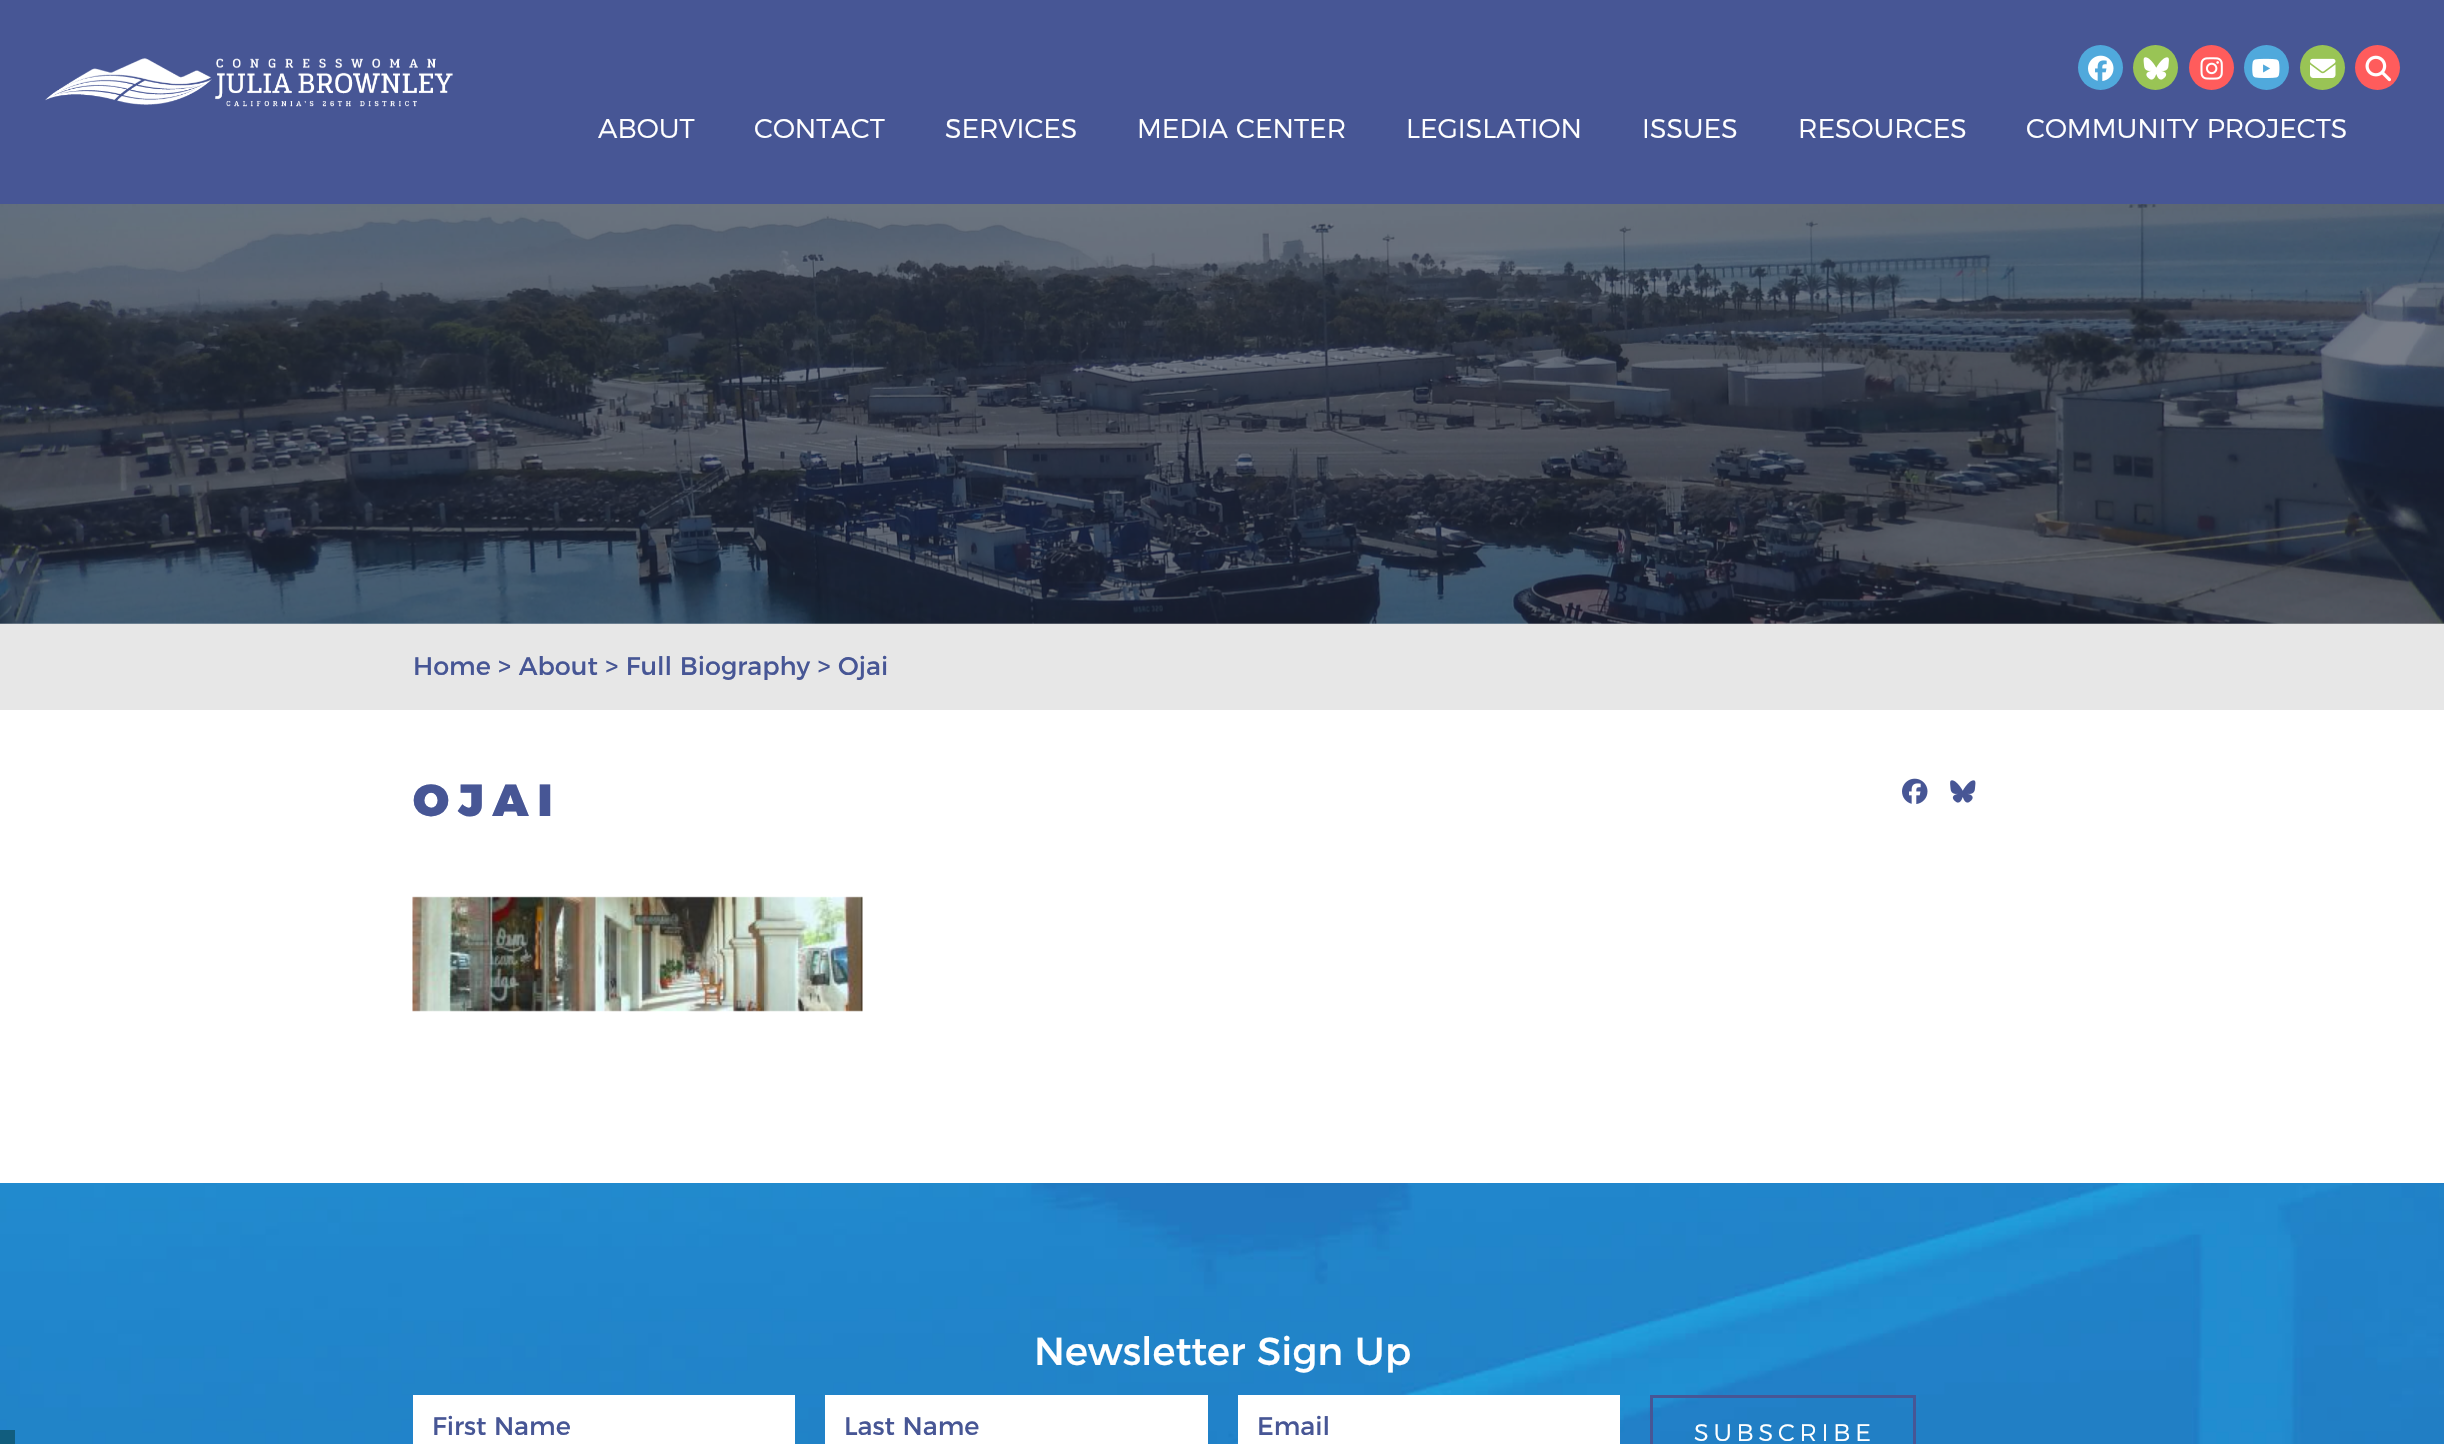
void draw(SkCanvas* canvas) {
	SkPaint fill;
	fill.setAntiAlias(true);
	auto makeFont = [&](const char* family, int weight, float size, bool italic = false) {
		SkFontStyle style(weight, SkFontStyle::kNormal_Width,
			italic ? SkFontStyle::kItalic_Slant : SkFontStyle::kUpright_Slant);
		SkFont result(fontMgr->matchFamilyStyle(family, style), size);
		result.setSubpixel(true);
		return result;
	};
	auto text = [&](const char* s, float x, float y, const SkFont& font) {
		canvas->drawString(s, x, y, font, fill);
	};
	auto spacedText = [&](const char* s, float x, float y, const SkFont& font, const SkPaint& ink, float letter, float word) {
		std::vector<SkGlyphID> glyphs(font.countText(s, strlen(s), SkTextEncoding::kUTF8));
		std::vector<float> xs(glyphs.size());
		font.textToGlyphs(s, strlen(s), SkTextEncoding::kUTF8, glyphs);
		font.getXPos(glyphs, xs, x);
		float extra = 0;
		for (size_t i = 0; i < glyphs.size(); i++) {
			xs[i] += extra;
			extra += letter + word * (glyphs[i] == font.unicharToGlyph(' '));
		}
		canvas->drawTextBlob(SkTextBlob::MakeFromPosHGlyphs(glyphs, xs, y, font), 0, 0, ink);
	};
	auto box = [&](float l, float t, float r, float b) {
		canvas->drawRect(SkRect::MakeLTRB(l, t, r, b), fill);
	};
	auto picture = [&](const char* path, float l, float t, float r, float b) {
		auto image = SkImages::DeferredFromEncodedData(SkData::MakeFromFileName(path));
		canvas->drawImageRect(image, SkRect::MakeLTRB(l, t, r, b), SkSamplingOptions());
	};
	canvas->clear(0xFFFFFFFF);
	fill.setColor(0xFF475695);
	box(0, 0, 2444, 204);
	picture("image0.png", 45, 58, 453, 107);
	fill.setColor(0xFF50A9DC);
	canvas->drawCircle(2100.5f, 67.5f, 22.5f, fill);
	picture("image1.png", 2088, 55, 2114, 81);
	fill.setColor(0xFF99C455);
	canvas->drawCircle(2155.5f, 67.5f, 22.5f, fill);
	picture("image2.png", 2143, 57, 2169, 80);
	fill.setColor(0xFFFF5C5C);
	canvas->drawCircle(2211.5f, 67.5f, 22.5f, fill);
	picture("image3.png", 2200, 57, 2223, 80);
	fill.setColor(0xFF50A9DC);
	canvas->drawCircle(2266.5f, 67.5f, 22.5f, fill);
	picture("image4.png", 2252, 58, 2280, 78);
	fill.setColor(0xFF99C455);
	canvas->drawCircle(2322.5f, 67.5f, 22.5f, fill);
	picture("image5.png", 2310, 58, 2336, 78);
	fill.setColor(0xFFFF5C5C);
	canvas->drawCircle(2377.5f, 67.5f, 22.5f, fill);
	picture("image6.png", 2365, 55, 2391, 82);
	picture("image7.png", 0, 204, 2444, 624);
	fill.setColor(0xFFE7E7E7);
	box(0, 624, 2444, 710);
	picture("image8.png", 1902, 778, 1928, 804);
	picture("image9.png", 1950, 780, 1976, 803);
	picture("image10.png", 412, 896, 863, 1012);
	picture("image11.png", 0, 1183, 2444, 1444);
	fill.setColor(0xFF115D7E);
	box(0, 1430, 15, 1444);
	fill.setColor(0xFFFFFFFF);
	box(413, 1395, 795, 1444);
	box(825, 1395, 1208, 1444);
	box(1238, 1395, 1620, 1444);
	fill.setStyle(SkPaint::kStroke_Style);
	fill.setStrokeWidth(3);
	fill.setColor(0xFF475695);
	canvas->drawRect(SkRect::MakeLTRB(1651.5f, 1396.5f, 1914.5f, 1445.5f), fill);
	auto font1 = makeFont("Montserrat", 300, 27);
	fill.setStyle(SkPaint::kFill_Style);
	fill.setColor(0xFFFFFFFF);
	text("ABOUT", 598, 138, font1);
	text("CONTACT", 754, 138, font1);
	text("SERVICES", 945, 138, font1);
	text("MEDIA CENTER", 1137, 138, font1);
	text("LEGISLATION", 1406, 138, font1);
	text("ISSUES", 1642, 138, font1);
	text("RESOURCES", 1798, 138, font1);
	text("COMMUNITY PROJECTS", 2026, 138, font1);
	auto font2 = makeFont("Montserrat", 400, 25.5f);
	fill.setColor(0xFF475695);
	text("Home > About > Full Biography > Ojai", 413, 675, font2);
	auto font3 = makeFont("Montserrat", 900, 45);
	spacedText("OJAI", 413, 816, font3, fill, 9, 0);
	auto font4 = makeFont("Montserrat", 400, 39);
	fill.setColor(0xFFFFFFFF);
	text("Newsletter Sign Up", 1034, 1365, font4);
	fill.setColor(0xFF475695);
	text("First Name", 432, 1435, font2);
	text("Last Name", 844, 1435, font2);
	text("Email", 1257, 1435, font2);
	auto font5 = makeFont("Montserrat", 300, 24);
	fill.setColor(0xFFFFFFFF);
	spacedText("SUBSCRIBE", 1694, 1441, font5, fill, 4.75f, 0);
}
